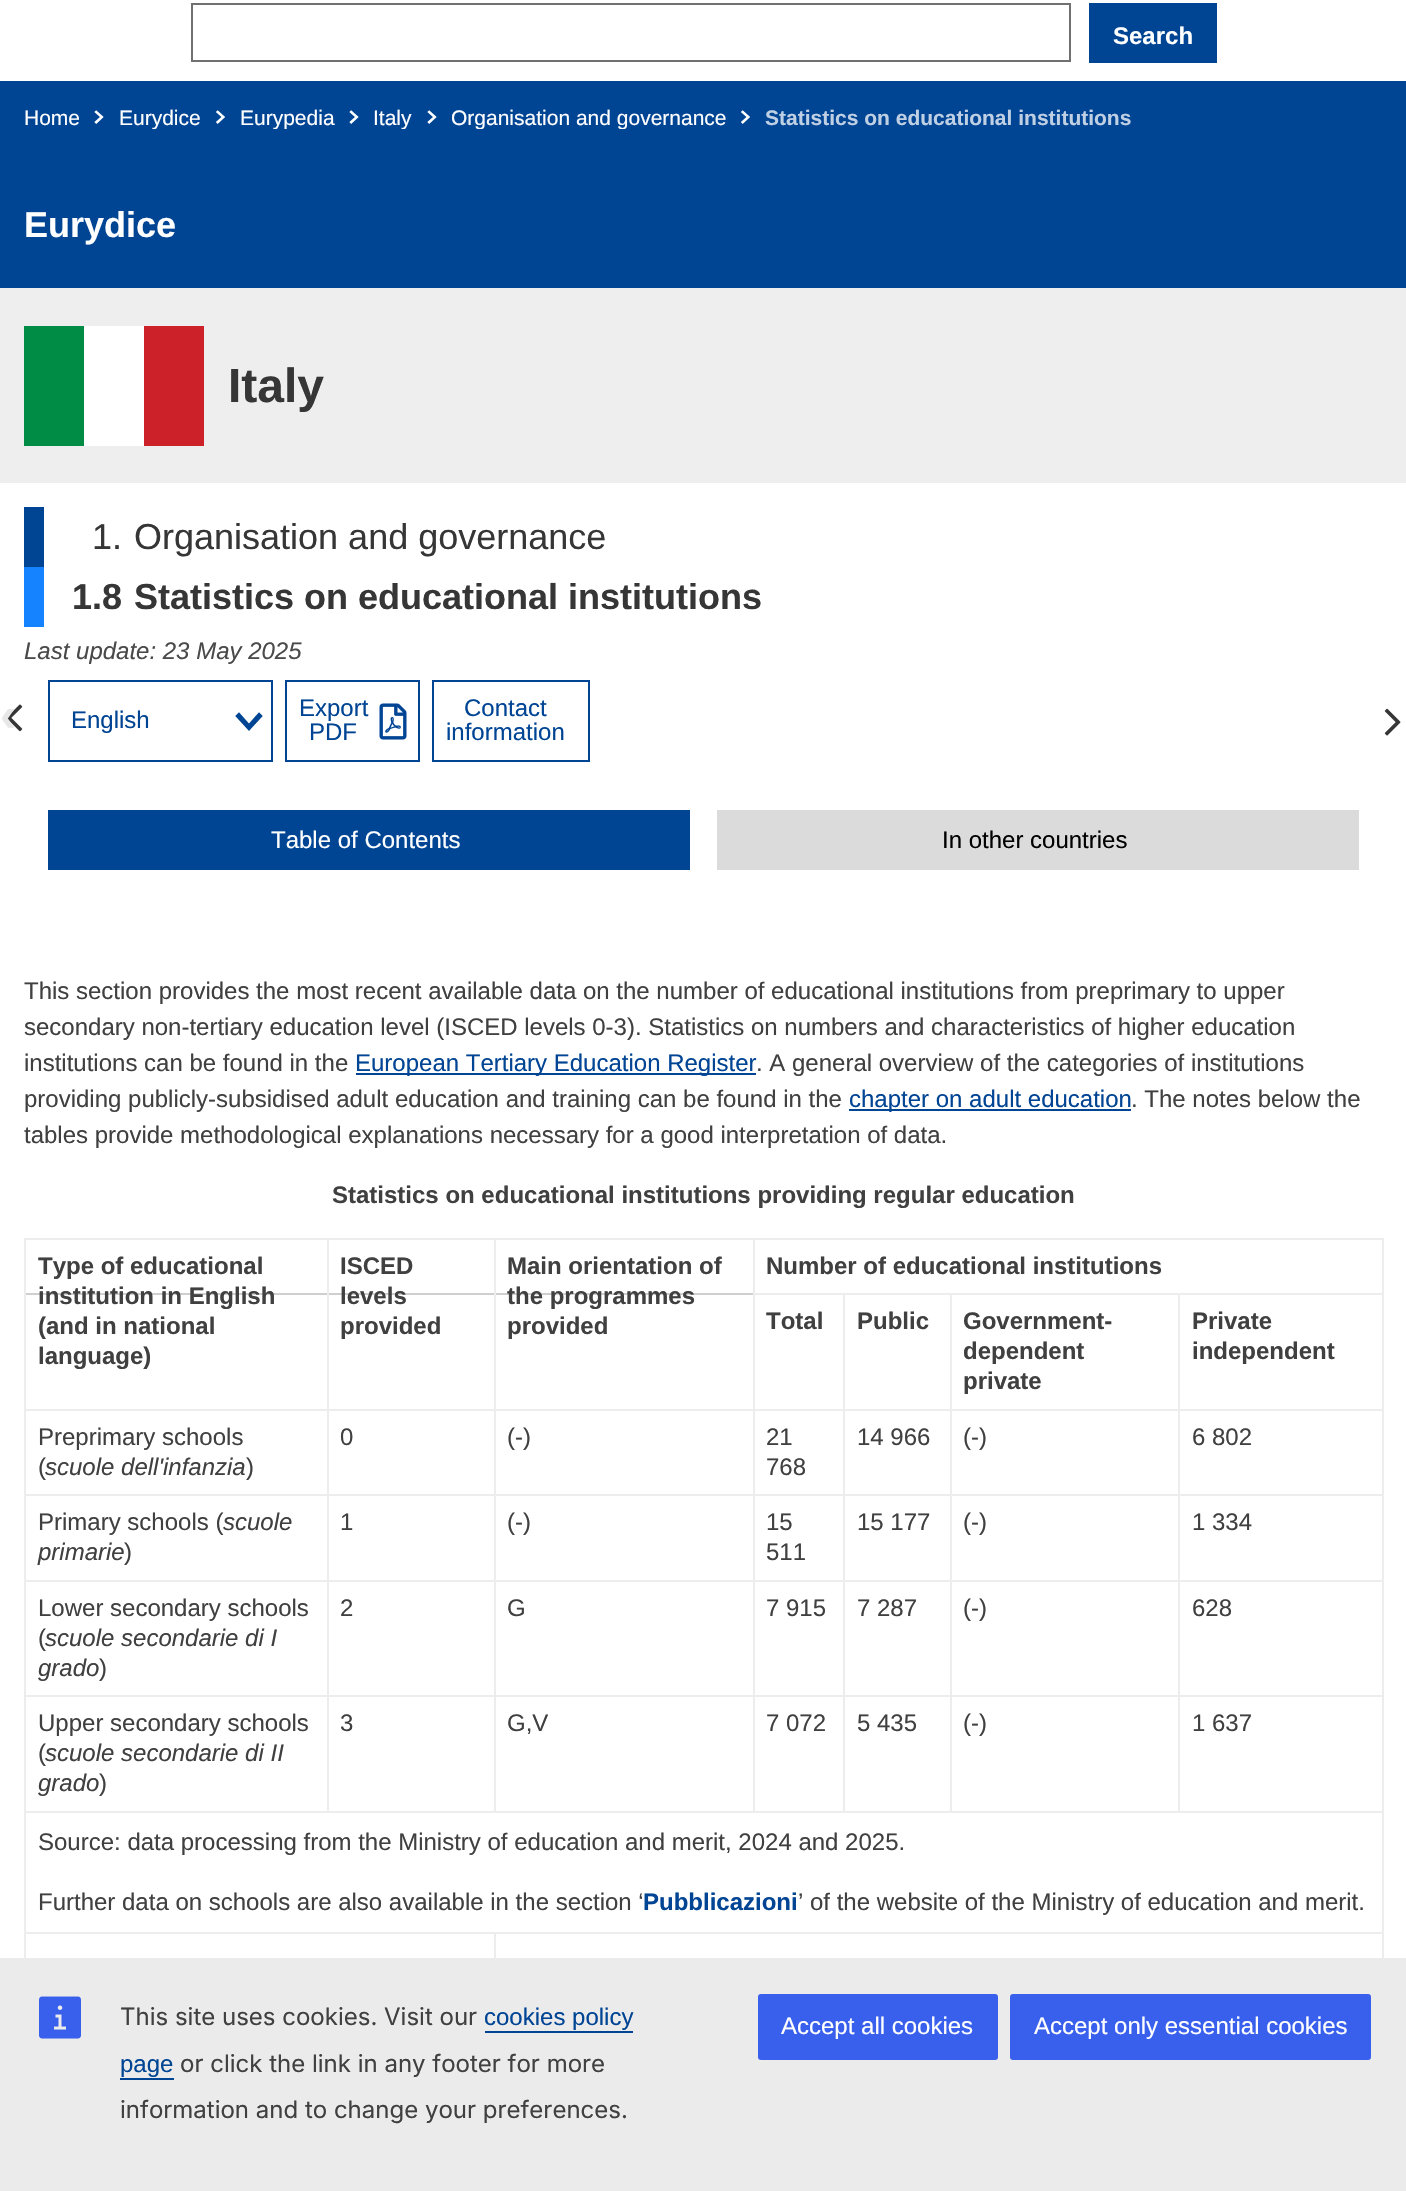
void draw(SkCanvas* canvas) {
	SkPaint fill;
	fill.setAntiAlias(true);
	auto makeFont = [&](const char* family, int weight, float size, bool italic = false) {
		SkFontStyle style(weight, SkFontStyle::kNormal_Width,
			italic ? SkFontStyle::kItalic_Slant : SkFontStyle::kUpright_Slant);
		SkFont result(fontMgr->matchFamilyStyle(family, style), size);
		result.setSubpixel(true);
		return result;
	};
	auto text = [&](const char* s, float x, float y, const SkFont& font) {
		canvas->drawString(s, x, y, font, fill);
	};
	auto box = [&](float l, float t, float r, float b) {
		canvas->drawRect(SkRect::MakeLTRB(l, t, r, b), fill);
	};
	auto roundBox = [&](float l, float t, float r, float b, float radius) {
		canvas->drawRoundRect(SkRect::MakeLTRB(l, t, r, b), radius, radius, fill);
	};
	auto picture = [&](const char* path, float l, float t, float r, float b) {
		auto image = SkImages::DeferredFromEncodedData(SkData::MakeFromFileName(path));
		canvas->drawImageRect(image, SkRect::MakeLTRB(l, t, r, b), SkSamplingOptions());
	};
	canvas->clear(0xFFFFFFFF);
	fill.setStyle(SkPaint::kStroke_Style);
	fill.setStrokeWidth(2);
	fill.setColor(0xFF707070);
	canvas->drawRect(SkRect::MakeLTRB(192, 4, 1070, 61), fill);
	fill.setStyle(SkPaint::kFill_Style);
	fill.setColor(0xFF004494);
	box(1089, 3, 1217, 63);
	box(0, 81, 1406, 288);
	picture("image0.png", 94, 110, 104, 124);
	picture("image1.png", 216, 110, 225, 124);
	picture("image0.png", 349, 110, 359, 124);
	picture("image0.png", 427, 110, 437, 124);
	picture("image1.png", 741, 110, 750, 124);
	fill.setColor(0xFFEEEEEE);
	box(0, 288, 1406, 483);
	fill.setColor(0xFF008C45);
	box(24, 326, 84, 446);
	fill.setColor(0xFFFFFFFF);
	box(84, 326, 144, 446);
	fill.setColor(0xFFCD212A);
	box(144, 326, 204, 446);
	fill.setColor(0xFF004594);
	box(24, 507, 44, 567);
	fill.setColor(0xFF1582FF);
	box(24, 567, 44, 627);
	picture("image2.png", 235, 712, 263, 731);
	fill.setStyle(SkPaint::kStroke_Style);
	fill.setColor(0xFF004594);
	canvas->drawRect(SkRect::MakeLTRB(49, 681, 272, 761), fill);
	canvas->drawRect(SkRect::MakeLTRB(286, 681, 419, 761), fill);
	picture("image3.png", 379, 703, 407, 740);
	canvas->drawRect(SkRect::MakeLTRB(433, 681, 589, 761), fill);
	fill.setStyle(SkPaint::kFill_Style);
	box(48, 810, 690, 870);
	fill.setColor(0xFFDBDBDB);
	box(717, 810, 1359, 870);
	picture("image4.png", 6, 704, 23, 732);
	picture("image5.png", 1384, 708, 1401, 736);
	fill.setColor(0xFF004494);
	box(356, 1073, 756, 1075);
	box(849, 1109, 1131, 1111);
	fill.setColor(0xFFCFCFCF);
	box(24, 1293, 753, 1295);
	fill.setColor(0xFFEDEDED);
	box(753, 1238, 1383, 1240);
	box(1178, 1293, 1383, 1295);
	box(1178, 1409, 1383, 1411);
	box(1178, 1494, 1383, 1496);
	box(1178, 1580, 1383, 1582);
	box(1178, 1695, 1383, 1697);
	box(24, 1811, 1383, 1813);
	box(1178, 1695, 1180, 1812);
	box(950, 1695, 1179, 1697);
	box(1178, 1580, 1180, 1697);
	box(950, 1580, 1179, 1582);
	box(1178, 1494, 1180, 1581);
	box(950, 1494, 1179, 1496);
	box(1178, 1409, 1180, 1496);
	box(950, 1409, 1179, 1411);
	box(1178, 1293, 1180, 1410);
	box(950, 1293, 1179, 1295);
	box(950, 1695, 952, 1812);
	box(843, 1695, 951, 1697);
	box(950, 1580, 952, 1697);
	box(843, 1580, 951, 1582);
	box(950, 1494, 952, 1581);
	box(843, 1494, 951, 1496);
	box(950, 1409, 952, 1496);
	box(843, 1409, 951, 1411);
	box(950, 1293, 952, 1410);
	box(843, 1293, 951, 1295);
	box(843, 1695, 845, 1812);
	box(753, 1695, 845, 1697);
	box(843, 1580, 845, 1697);
	box(753, 1580, 845, 1582);
	box(843, 1494, 845, 1581);
	box(753, 1494, 845, 1496);
	box(843, 1409, 845, 1496);
	box(753, 1409, 845, 1411);
	box(843, 1293, 845, 1410);
	box(753, 1293, 845, 1295);
	box(753, 1695, 755, 1812);
	box(494, 1695, 755, 1697);
	box(753, 1580, 755, 1697);
	box(494, 1580, 755, 1582);
	box(753, 1494, 755, 1581);
	box(494, 1494, 755, 1496);
	box(753, 1409, 755, 1496);
	box(494, 1409, 755, 1411);
	box(753, 1293, 755, 1410);
	box(753, 1238, 755, 1295);
	box(494, 1238, 755, 1240);
	box(494, 1695, 496, 1812);
	box(327, 1695, 495, 1697);
	box(494, 1580, 496, 1697);
	box(327, 1580, 495, 1582);
	box(494, 1494, 496, 1581);
	box(327, 1494, 495, 1496);
	box(494, 1409, 496, 1496);
	box(327, 1409, 495, 1411);
	box(494, 1238, 496, 1410);
	box(327, 1238, 495, 1240);
	box(327, 1695, 329, 1812);
	box(24, 1695, 329, 1697);
	box(327, 1580, 329, 1697);
	box(24, 1580, 329, 1582);
	box(327, 1494, 329, 1581);
	box(24, 1494, 329, 1496);
	box(327, 1409, 329, 1496);
	box(24, 1409, 329, 1411);
	box(327, 1238, 329, 1410);
	box(24, 1238, 329, 1240);
	box(494, 1932, 1383, 1934);
	box(494, 1932, 496, 1958);
	box(24, 1932, 495, 1934);
	box(24, 1932, 26, 1958);
	box(24, 1811, 26, 1934);
	box(24, 1695, 26, 1812);
	box(24, 1580, 26, 1697);
	box(24, 1494, 26, 1581);
	box(24, 1409, 26, 1496);
	box(24, 1238, 26, 1410);
	box(1382, 1932, 1384, 1958);
	box(1382, 1811, 1384, 1934);
	box(1382, 1695, 1384, 1812);
	box(1382, 1580, 1384, 1697);
	box(1382, 1494, 1384, 1581);
	box(1382, 1409, 1384, 1496);
	box(1382, 1293, 1384, 1410);
	box(1382, 1238, 1384, 1295);
	fill.setColor(0xFFEBEBEB);
	box(0, 1958, 1406, 2191);
	picture("image6.png", 39, 1996, 81, 2039);
	fill.setColor(0xFF004494);
	box(485, 2031, 633, 2033);
	box(120, 2078, 174, 2080);
	fill.setColor(0xFF3860ED);
	roundBox(758, 1994, 998, 2060, 3);
	roundBox(1010, 1994, 1371, 2060, 3);
	auto font1 = makeFont("Liberation Sans", 700, 24);
	fill.setColor(0xFFFFFFFF);
	text("Search", 1113, 44, font1);
	auto font2 = makeFont("Liberation Sans", 400, 21);
	text("Home", 24, 125, font2);
	canvas->save();
	canvas->clipRect(SkRect::MakeLTRB(119, 105, 201, 129));
	text("Eurydice", 119, 125, font2);
	canvas->restore();
	canvas->save();
	canvas->clipRect(SkRect::MakeLTRB(240, 105, 335, 129));
	text("Eurypedia", 240, 125, font2);
	canvas->restore();
	canvas->save();
	canvas->clipRect(SkRect::MakeLTRB(374, 105, 413, 129));
	text("Italy", 373, 125, font2);
	canvas->restore();
	canvas->save();
	canvas->clipRect(SkRect::MakeLTRB(452, 105, 726, 129));
	text("Organisation and governance", 451, 125, font2);
	canvas->restore();
	auto font3 = makeFont("Liberation Sans", 700, 21);
	fill.setColor(0xFFBFD0E4);
	text("Statistics on educational institutions", 765, 125, font3);
	auto font4 = makeFont("Liberation Sans", 700, 36);
	fill.setColor(0xFFFFFFFF);
	text("Eurydice", 24, 237, font4);
	auto font5 = makeFont("Liberation Sans", 700, 48);
	fill.setColor(0xFF363636);
	text("Italy", 228, 402, font5);
	auto font6 = makeFont("Liberation Sans", 400, 36);
	text("1.", 92, 549, font6);
	text("Organisation and governance", 134, 549, font6);
	text("1.8", 72, 609, font4);
	text("Statistics on educational institutions", 134, 609, font4);
	auto font7 = makeFont("Liberation Sans", 400, 24, true);
	fill.setColor(0xFF4A4A4A);
	text("Last update: 23 May 2025", 24, 659, font7);
	auto font8 = makeFont("Liberation Sans", 400, 24);
	fill.setColor(0xFF004494);
	text("English", 71, 728, font8);
	text("Export", 299, 716, font8);
	text("PDF", 309, 740, font8);
	text("Contact", 464, 716, font8);
	text("information", 446, 740, font8);
	fill.setColor(0xFFFFFFFF);
	text("Table of Contents", 271, 848, font8);
	fill.setColor(0xFF000000);
	text("In other countries", 942, 848, font8);
	fill.setColor(0xFFE7E7E7);
	text("‹", 0, 731, font5);
	fill.setColor(0xFF404040);
	text("This section provides the most recent available data on the number of educational institutions from preprimary to upper", 24, 999, font8);
	text("secondary non-tertiary education level (ISCED levels 0-3). Statistics on numbers and characteristics of higher education", 24, 1035, font8);
	text("institutions can be found in the", 24, 1071, font8);
	fill.setColor(0xFF004494);
	text("European Tertiary Education Register", 355, 1071, font8);
	fill.setColor(0xFF404040);
	text(". A general overview of the categories of institutions", 756, 1071, font8);
	text("providing publicly-subsidised adult education and training can be found in the", 24, 1107, font8);
	fill.setColor(0xFF004494);
	text("chapter on adult education", 849, 1107, font8);
	fill.setColor(0xFF404040);
	text(". The notes below the", 1131, 1107, font8);
	text("tables provide methodological explanations necessary for a good interpretation of data.", 24, 1143, font8);
	text("Statistics on educational institutions providing regular education", 332, 1203, font1);
	text("Type of educational", 38, 1274, font1);
	text("institution in English", 38, 1304, font1);
	text("(and in national", 38, 1334, font1);
	text("language)", 38, 1364, font1);
	text("ISCED", 340, 1274, font1);
	text("levels", 340, 1304, font1);
	text("provided", 340, 1334, font1);
	text("Main orientation of", 507, 1274, font1);
	text("the programmes", 507, 1304, font1);
	text("provided", 507, 1334, font1);
	text("Number of educational institutions", 766, 1274, font1);
	text("Total", 766, 1329, font1);
	text("Public", 857, 1329, font1);
	text("Government-", 963, 1329, font1);
	text("dependent", 963, 1359, font1);
	text("private", 963, 1389, font1);
	text("Private", 1192, 1329, font1);
	text("independent", 1192, 1359, font1);
	text("Preprimary schools", 38, 1445, font8);
	text("(", 38, 1475, font8);
	text("scuole dell'infanzia", 45, 1475, font7);
	text(")", 246, 1475, font8);
	text("0", 340, 1445, font8);
	text("(-)", 507, 1445, font8);
	text("21", 766, 1445, font8);
	text("768", 766, 1475, font8);
	text("14 966", 857, 1445, font8);
	text("(-)", 963, 1445, font8);
	text("6 802", 1192, 1445, font8);
	text("Primary schools (", 38, 1530, font8);
	text("scuole", 223, 1530, font7);
	text("primarie", 38, 1560, font7);
	text(")", 124, 1560, font8);
	text("1", 340, 1530, font8);
	text("(-)", 507, 1530, font8);
	text("15", 766, 1530, font8);
	text("511", 766, 1560, font8);
	text("15 177", 857, 1530, font8);
	text("(-)", 963, 1530, font8);
	text("1 334", 1192, 1530, font8);
	text("Lower secondary schools", 38, 1616, font8);
	text("(", 38, 1646, font8);
	text("scuole secondarie di I", 45, 1646, font7);
	text("grado", 38, 1676, font7);
	text(")", 99, 1676, font8);
	text("2", 340, 1616, font8);
	text("G", 507, 1616, font8);
	text("7 915", 766, 1616, font8);
	text("7 287", 857, 1616, font8);
	text("(-)", 963, 1616, font8);
	text("628", 1192, 1616, font8);
	text("Upper secondary schools", 38, 1731, font8);
	text("(", 38, 1761, font8);
	text("scuole secondarie di II", 45, 1761, font7);
	text("grado", 38, 1791, font7);
	text(")", 99, 1791, font8);
	text("3", 340, 1731, font8);
	text("G,V", 507, 1731, font8);
	text("7 072", 766, 1731, font8);
	text("5 435", 857, 1731, font8);
	text("(-)", 963, 1731, font8);
	text("1 637", 1192, 1731, font8);
	text("Source: data processing from the Ministry of education and merit, 2024 and 2025.", 38, 1850, font8);
	text("Further data on schools are also available in the section ‘", 38, 1910, font8);
	fill.setColor(0xFF004494);
	text("Pubblicazioni", 643, 1910, font1);
	fill.setColor(0xFF404040);
	text("’ of the website of the Ministry of education and merit.", 798, 1910, font8);
	auto font9 = makeFont("Inter", 400, 24);
	text("This site uses cookies. Visit our", 120, 2025, font9);
	fill.setColor(0xFF004494);
	text("cookies policy", 484, 2025, font8);
	text("page", 120, 2072, font8);
	fill.setColor(0xFF404040);
	text("or click the link in any footer for more", 180, 2072, font9);
	text("information and to change your preferences.", 120, 2118, font9);
	fill.setColor(0xFFFFFFFF);
	text("Accept all cookies", 781, 2034, font8);
	text("Accept only essential cookies", 1034, 2034, font8);
}
